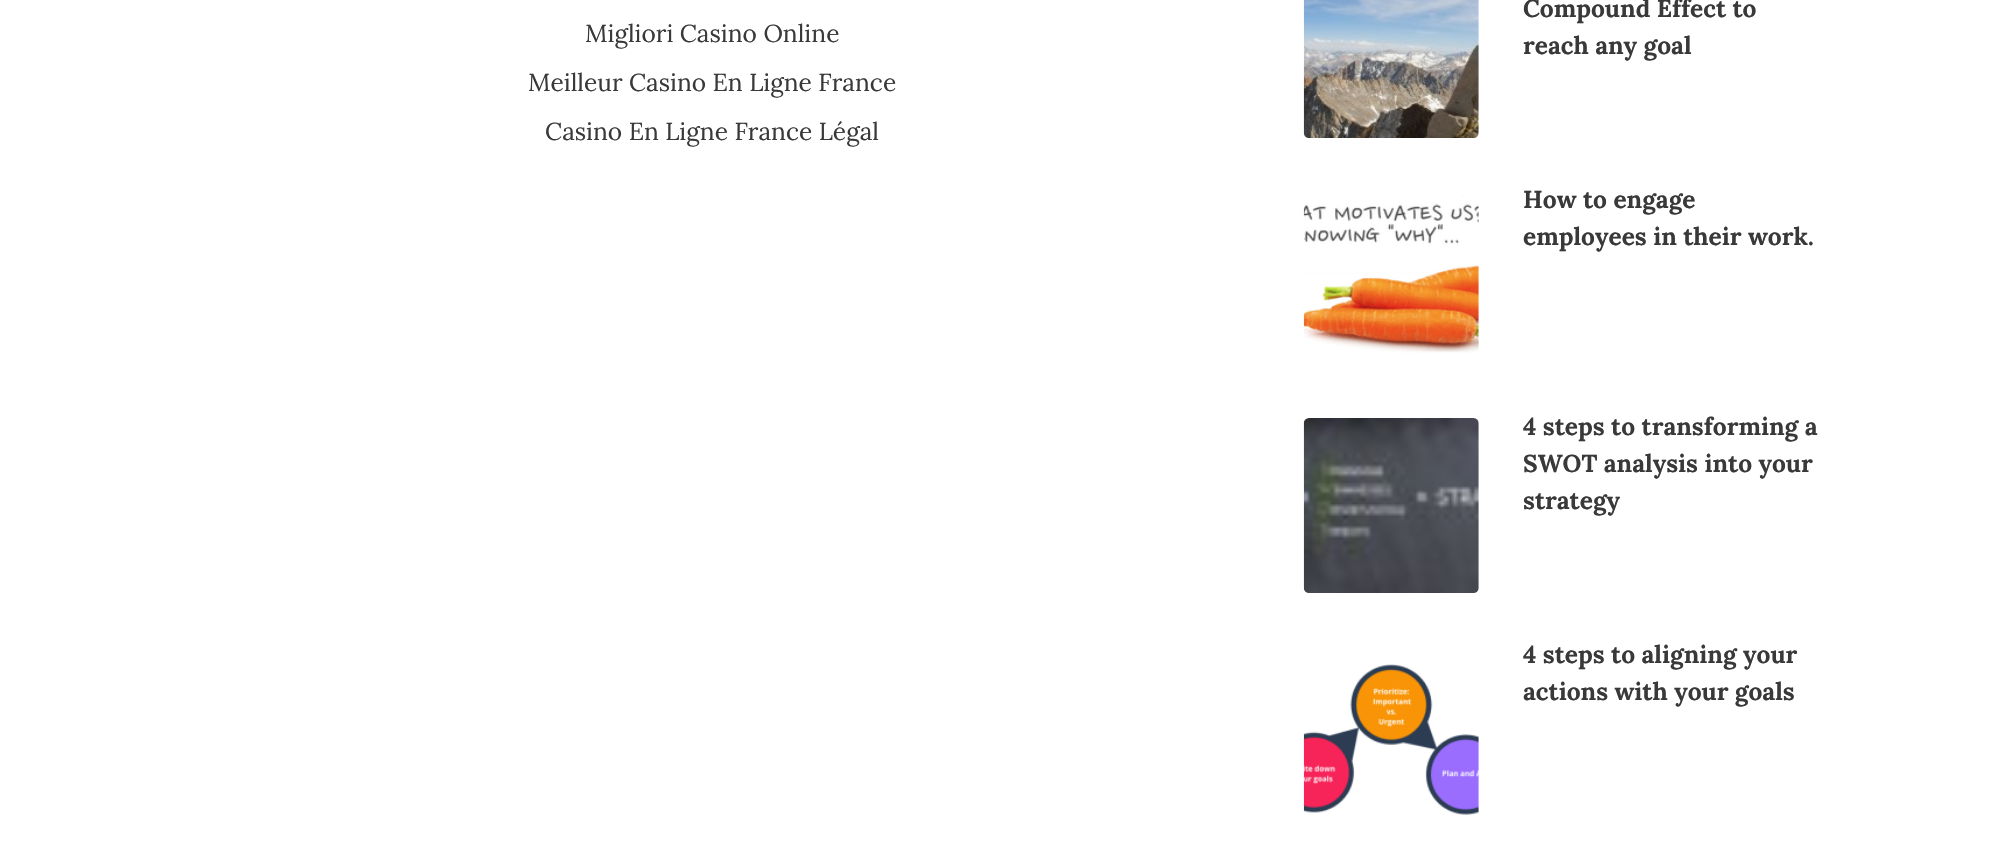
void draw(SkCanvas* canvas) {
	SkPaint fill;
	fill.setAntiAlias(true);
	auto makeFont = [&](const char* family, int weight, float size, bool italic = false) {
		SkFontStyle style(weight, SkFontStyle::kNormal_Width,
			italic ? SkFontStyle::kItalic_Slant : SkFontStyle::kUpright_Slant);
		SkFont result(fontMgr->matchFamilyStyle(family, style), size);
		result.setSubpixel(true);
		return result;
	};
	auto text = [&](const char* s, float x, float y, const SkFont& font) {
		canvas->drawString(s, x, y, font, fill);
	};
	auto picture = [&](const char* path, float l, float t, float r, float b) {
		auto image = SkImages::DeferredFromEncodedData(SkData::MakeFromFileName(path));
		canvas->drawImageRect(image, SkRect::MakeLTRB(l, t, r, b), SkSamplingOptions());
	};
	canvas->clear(0xFFFFFFFF);
	picture("image0.png", 1303, 0, 1479, 138);
	picture("image1.png", 1303, 194, 1479, 353);
	picture("image2.png", 1303, 418, 1479, 593);
	picture("image3.png", 1303, 664, 1479, 815);
	auto font1 = makeFont("Lora", 400, 24.5f);
	fill.setColor(0xFF393939);
	text("Migliori Casino Online", 585, 42, font1);
	text("Meilleur Casino En Ligne France", 528, 91, font1);
	text("Casino En Ligne France Légal", 545, 140, font1);
	auto font2 = makeFont("Lora", 700, 24.5f);
	text("Compound Effect to", 1523, 17, font2);
	text("reach any goal", 1523, 54, font2);
	text("How to engage", 1523, 208, font2);
	text("employees in their work.", 1523, 245, font2);
	text("4 steps to transforming a", 1523, 435, font2);
	text("SWOT analysis into your", 1523, 472, font2);
	text("strategy", 1523, 509, font2);
	text("4 steps to aligning your", 1523, 663, font2);
	text("actions with your goals", 1523, 700, font2);
}
